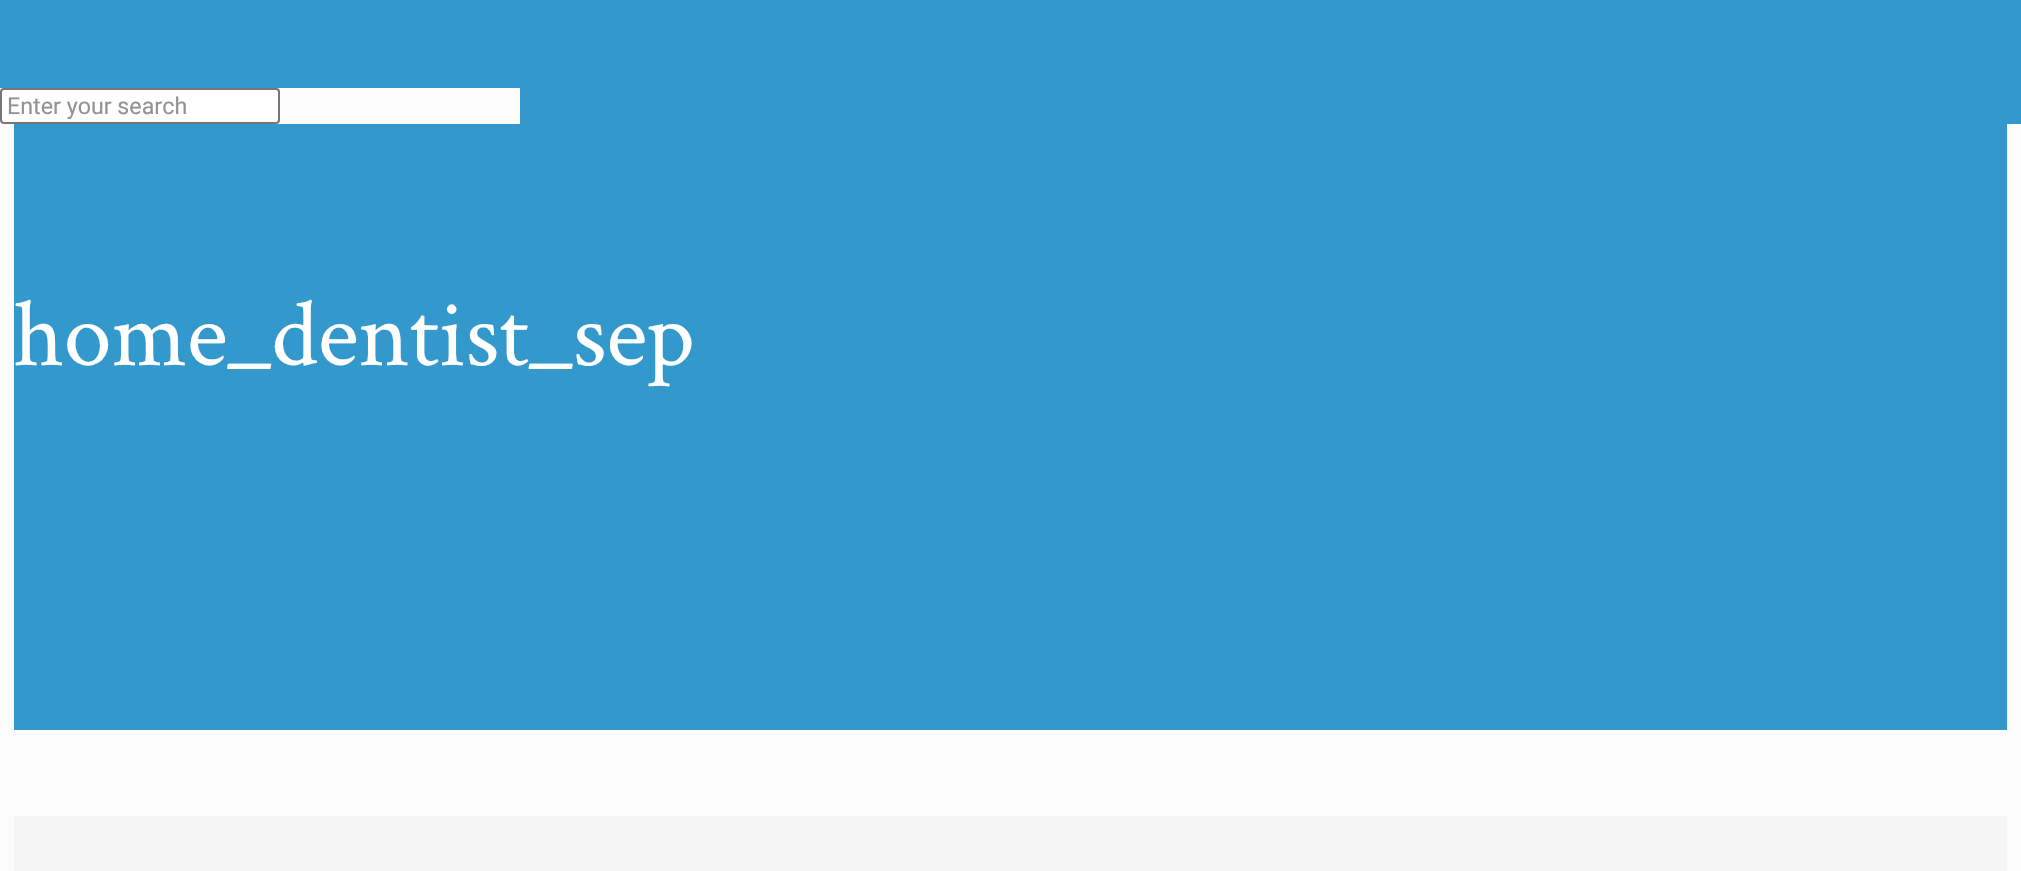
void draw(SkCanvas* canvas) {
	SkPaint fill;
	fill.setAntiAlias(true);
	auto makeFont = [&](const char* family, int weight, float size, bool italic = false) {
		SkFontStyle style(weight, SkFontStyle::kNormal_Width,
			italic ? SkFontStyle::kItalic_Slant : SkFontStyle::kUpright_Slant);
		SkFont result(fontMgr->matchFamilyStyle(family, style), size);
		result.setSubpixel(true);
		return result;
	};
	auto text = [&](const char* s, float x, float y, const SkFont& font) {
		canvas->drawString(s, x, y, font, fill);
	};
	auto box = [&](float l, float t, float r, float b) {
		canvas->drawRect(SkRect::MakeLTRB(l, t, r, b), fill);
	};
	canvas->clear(0xFFFCFCFC);
	fill.setColor(0xFF3399CC);
	box(0, 0, 2021, 124);
	fill.setColor(0xFFFCFCFC);
	box(0, 88, 520, 124);
	fill.setColor(0xFFFFFFFF);
	canvas->drawRoundRect(SkRect::MakeLTRB(1, 89, 279, 123), 3, 3, fill);
	fill.setStyle(SkPaint::kStroke_Style);
	fill.setStrokeWidth(2);
	fill.setColor(0xFF767676);
	canvas->drawRoundRect(SkRect::MakeLTRB(1, 89, 279, 123), 3, 3, fill);
	fill.setStyle(SkPaint::kFill_Style);
	fill.setColor(0xFF3399CC);
	box(14, 124, 2007, 730);
	fill.setColor(0xFFF5F5F5);
	box(14, 816, 2007, 871);
	auto font1 = makeFont("Roboto", 400, 23.25f);
	fill.setColor(0xFF929292);
	text("Enter your search", 7, 114, font1);
	auto font2 = makeFont("Crimson Text", 400, 96.25f);
	fill.setColor(0xFFFFFFFF);
	text("home_dentist_sep", 14, 365, font2);
}
